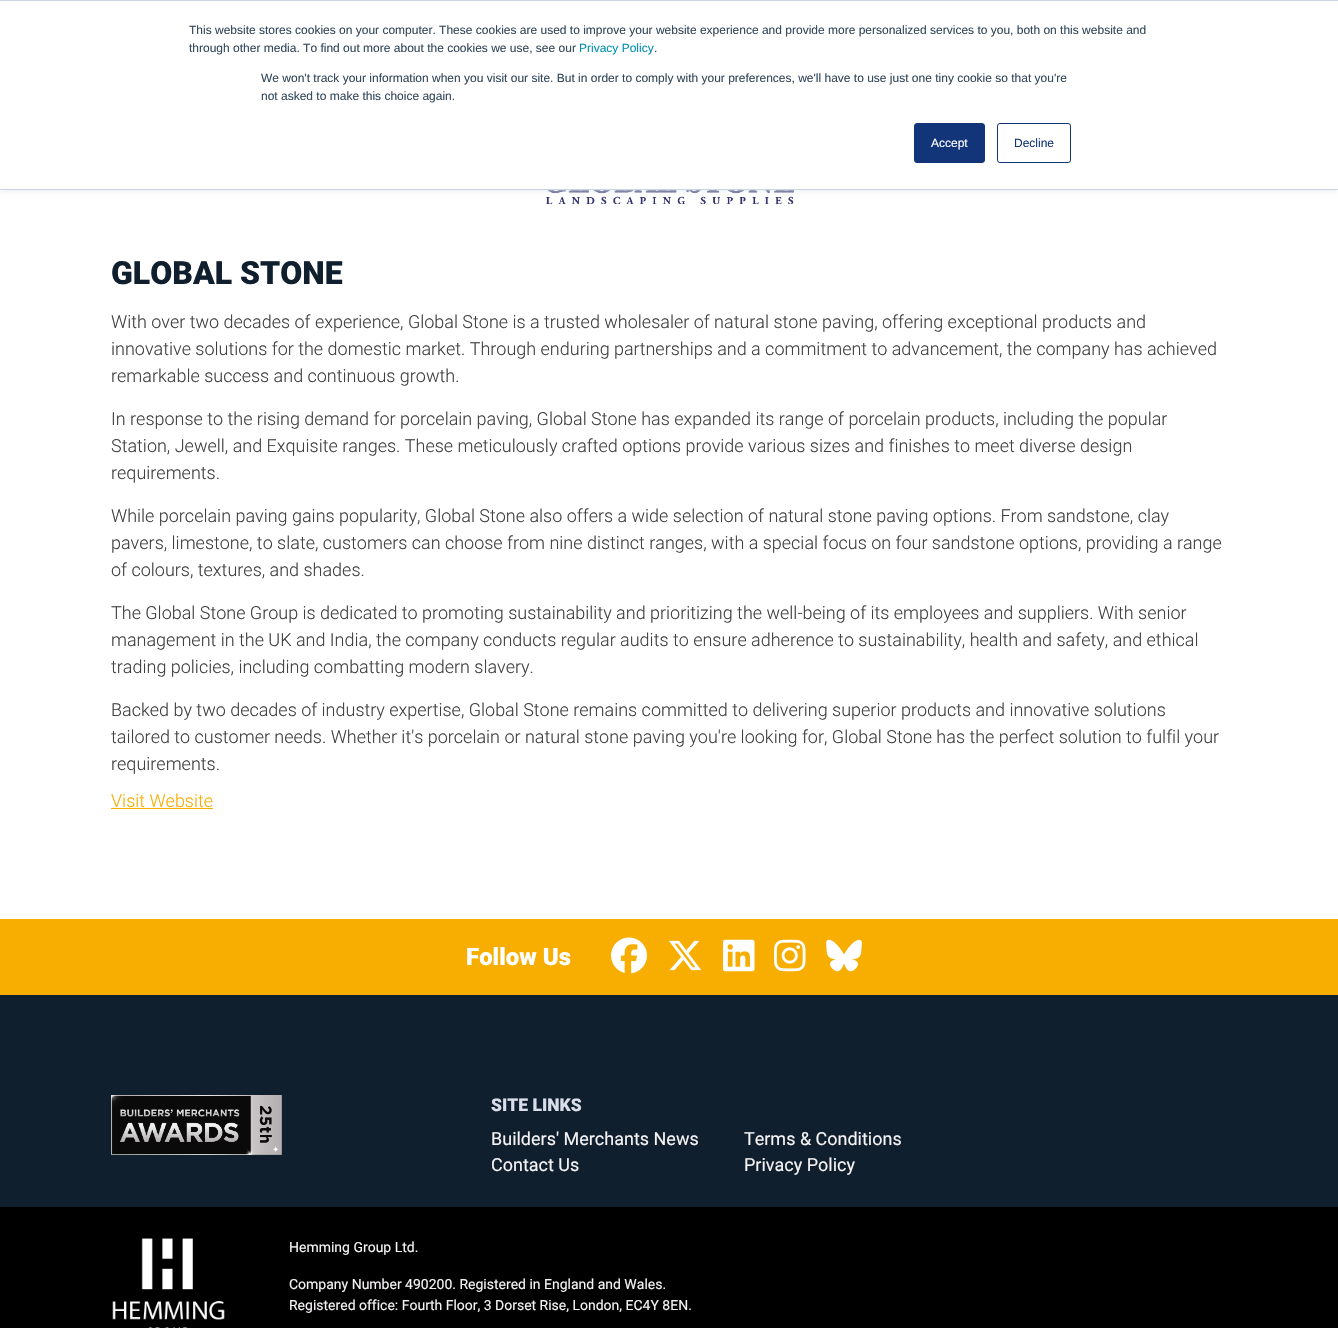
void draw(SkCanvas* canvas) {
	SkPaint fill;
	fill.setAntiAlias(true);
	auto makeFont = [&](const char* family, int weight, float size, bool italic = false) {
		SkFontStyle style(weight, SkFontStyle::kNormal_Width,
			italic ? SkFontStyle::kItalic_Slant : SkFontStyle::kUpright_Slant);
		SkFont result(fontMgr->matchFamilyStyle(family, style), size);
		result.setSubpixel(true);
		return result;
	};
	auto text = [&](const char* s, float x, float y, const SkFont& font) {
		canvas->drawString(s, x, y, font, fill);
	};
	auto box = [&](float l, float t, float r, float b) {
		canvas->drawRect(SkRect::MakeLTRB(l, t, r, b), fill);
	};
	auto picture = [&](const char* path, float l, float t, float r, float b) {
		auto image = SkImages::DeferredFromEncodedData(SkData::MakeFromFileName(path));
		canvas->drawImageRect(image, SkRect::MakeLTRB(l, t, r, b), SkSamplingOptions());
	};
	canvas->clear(0xFFFFFFFF);
	picture("image0.png", 546, 190, 794, 204);
	fill.setColor(0xFFEAF0F6);
	fill.setMaskFilter(SkMaskFilter::MakeBlur(kNormal_SkBlurStyle, 2.5f));
	canvas->drawRect(SkRect::MakeLTRB(0, 1, 1338, 191), fill);
	fill.setMaskFilter(nullptr);
	fill.setColor(0xFFFFFFFF);
	box(0, 1, 1338, 189);
	fill.setColor(0xFFCBD6E2);
	box(0, 0, 1338, 1);
	box(0, 189, 1338, 190);
	fill.setColor(0xFF123579);
	canvas->drawRoundRect(SkRect::MakeLTRB(914.5f, 123.5f, 984.5f, 162.5f), 2.5f, 2.5f, fill);
	fill.setStyle(SkPaint::kStroke_Style);
	fill.setStrokeWidth(1);
	canvas->drawRoundRect(SkRect::MakeLTRB(914.5f, 123.5f, 984.5f, 162.5f), 2.5f, 2.5f, fill);
	canvas->drawRoundRect(SkRect::MakeLTRB(997.5f, 123.5f, 1070.5f, 162.5f), 2.5f, 2.5f, fill);
	fill.setStyle(SkPaint::kFill_Style);
	fill.setColor(0xFFF7AE00);
	box(111, 808, 213, 809);
	fill.setColor(0xFF101F2D);
	box(0, 995, 1338, 1207);
	fill.setColor(0xFFF7AE00);
	box(0, 919, 1338, 995);
	picture("image1.png", 611, 937, 647, 974);
	picture("image2.png", 669, 940, 702, 971);
	picture("image3.png", 723, 939, 755, 972);
	picture("image4.png", 774, 939, 806, 972);
	picture("image5.png", 826, 939, 862, 972);
	picture("image6.png", 111, 1095, 282, 1155);
	fill.setColor(0xFF000000);
	box(0, 1207, 1338, 1328);
	picture("image7.png", 112, 1238, 225, 1328);
	auto font1 = makeFont("Liberation Sans", 400, 12);
	fill.setColor(0xFF33475B);
	text("This website stores cookies on your computer. These cookies are used to improve your website experience and provide more personalized services to you, both on this website and", 189, 34, font1);
	text("through other media. To find out more about the cookies we use, see our", 189, 52, font1);
	fill.setColor(0xFF0091AE);
	text("Privacy Policy", 579, 52, font1);
	fill.setColor(0xFF33475B);
	text(".", 654, 52, font1);
	text("We won't track your information when you visit our site. But in order to comply with your preferences, we'll have to use just one tiny cookie so that you're", 261, 82, font1);
	text("not asked to make this choice again.", 261, 100, font1);
	fill.setColor(0xFFFFFFFF);
	text("Accept", 931, 147, font1);
	fill.setColor(0xFF123579);
	text("Decline", 1014, 147, font1);
	auto font2 = makeFont("Roboto", 900, 32);
	fill.setColor(0xFF101F2D);
	text("GLOBAL STONE", 111, 284, font2);
	auto font3 = makeFont("Roboto", 300, 18);
	fill.setColor(0xFF404040);
	text("With over two decades of experience, Global Stone is a trusted wholesaler of natural stone paving, offering exceptional products and", 111, 328, font3);
	text("innovative solutions for the domestic market. Through enduring partnerships and a commitment to advancement, the company has achieved", 111, 355, font3);
	text("remarkable success and continuous growth.", 111, 382, font3);
	text("In response to the rising demand for porcelain paving, Global Stone has expanded its range of porcelain products, including the popular", 111, 425, font3);
	text("Station, Jewell, and Exquisite ranges. These meticulously crafted options provide various sizes and finishes to meet diverse design", 111, 452, font3);
	text("requirements.", 111, 479, font3);
	text("While porcelain paving gains popularity, Global Stone also offers a wide selection of natural stone paving options. From sandstone, clay", 111, 522, font3);
	text("pavers, limestone, to slate, customers can choose from nine distinct ranges, with a special focus on four sandstone options, providing a range", 111, 549, font3);
	text("of colours, textures, and shades.", 111, 576, font3);
	text("The Global Stone Group is dedicated to promoting sustainability and prioritizing the well-being of its employees and suppliers. With senior", 111, 619, font3);
	text("management in the UK and India, the company conducts regular audits to ensure adherence to sustainability, health and safety, and ethical", 111, 646, font3);
	text("trading policies, including combatting modern slavery.", 111, 673, font3);
	text("Backed by two decades of industry expertise, Global Stone remains committed to delivering superior products and innovative solutions", 111, 716, font3);
	text("tailored to customer needs. Whether it's porcelain or natural stone paving you're looking for, Global Stone has the perfect solution to fulfil your", 111, 743, font3);
	text("requirements.", 111, 770, font3);
	fill.setColor(0xFFF7AE00);
	text("Visit Website", 111, 807, font3);
	auto font4 = makeFont("Roboto", 900, 24);
	fill.setColor(0xFFFFFFFF);
	text("Follow Us", 466, 965, font4);
	auto font5 = makeFont("Roboto", 900, 17.5f);
	fill.setColor(0xFFD9DEEA);
	text("SITE LINKS", 491, 1111, font5);
	auto font6 = makeFont("Roboto", 400, 18);
	fill.setColor(0xFFF5F3F5);
	text("Builders' Merchants News", 491, 1145, font6);
	text("Contact Us", 491, 1171, font6);
	text("Terms & Conditions", 744, 1145, font6);
	text("Privacy Policy", 744, 1171, font6);
	auto font7 = makeFont("Roboto", 400, 14);
	text("Hemming Group Ltd.", 289, 1252, font7);
	text("Company Number 490200. Registered in England and Wales.", 289, 1289, font7);
	text("Registered office: Fourth Floor, 3 Dorset Rise, London, EC4Y 8EN.", 289, 1310, font7);
}
